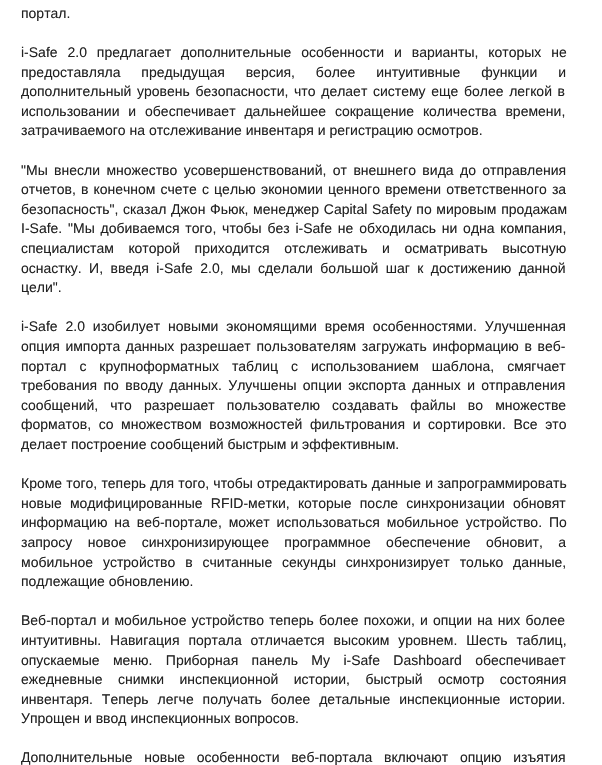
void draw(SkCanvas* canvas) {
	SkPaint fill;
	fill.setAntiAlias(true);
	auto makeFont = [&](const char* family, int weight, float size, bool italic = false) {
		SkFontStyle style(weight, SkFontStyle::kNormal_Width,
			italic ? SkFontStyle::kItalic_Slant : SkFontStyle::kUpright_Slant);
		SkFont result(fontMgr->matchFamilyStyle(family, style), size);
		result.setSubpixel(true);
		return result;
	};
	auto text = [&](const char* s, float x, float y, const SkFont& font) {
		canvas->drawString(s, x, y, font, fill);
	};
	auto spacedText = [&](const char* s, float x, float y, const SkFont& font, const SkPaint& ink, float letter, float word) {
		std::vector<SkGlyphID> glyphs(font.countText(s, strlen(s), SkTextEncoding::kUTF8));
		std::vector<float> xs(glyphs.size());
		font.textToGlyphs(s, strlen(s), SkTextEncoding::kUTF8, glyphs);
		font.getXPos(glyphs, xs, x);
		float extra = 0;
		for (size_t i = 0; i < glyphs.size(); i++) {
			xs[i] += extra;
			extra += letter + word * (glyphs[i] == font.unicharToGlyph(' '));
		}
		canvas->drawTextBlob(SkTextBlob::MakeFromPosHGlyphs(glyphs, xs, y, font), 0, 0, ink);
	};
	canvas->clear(0xFFFFFFFF);
	auto font1 = makeFont("Liberation Sans", 400, 14);
	fill.setColor(0xFF222222);
	text("портал.", 21, 18, font1);
	spacedText("i-Safe 2.0 предлагает дополнительные особенности и варианты, которых не", 21, 57, font1, fill, 0, 6);
	spacedText("предоставляла предыдущая версия, более интуитивные функции и", 21, 77, font1, fill, 0, 17);
	spacedText("дополнительный уровень безопасности, что делает систему еще более легкой в", 21, 96, font1, fill, 0, 1.75f);
	spacedText("использовании и обеспечивает дальнейшее сокращение количества времени,", 21, 116, font1, fill, 0, 5);
	text("затрачиваемого на отслеживание инвентаря и регистрацию осмотров.", 21, 135, font1);
	spacedText("\"Мы внесли множество усовершенствований, от внешнего вида до отправления", 21, 175, font1, fill, 0, 2.5f);
	spacedText("отчетов, в конечном счете с целью экономии ценного времени ответственного за", 21, 194, font1, fill, 0, 1.25f);
	spacedText("безопасность\", сказал Джон Фьюк, менеджер Capital Safety по мировым продажам", 21, 214, font1, fill, 0, 0.75f);
	spacedText("I-Safe. \"Мы добиваемся того, чтобы без i-Safe не обходилась ни одна компания,", 21, 233, font1, fill, 0, 1.9f);
	spacedText("специалистам которой приходится отслеживать и осматривать высотную", 21, 253, font1, fill, 0, 10.75f);
	spacedText("оснастку. И, введя i-Safe 2.0, мы сделали большой шаг к достижению данной", 21, 273, font1, fill, 0, 3.5f);
	text("цели\".", 21, 292, font1);
	spacedText("i-Safe 2.0 изобилует новыми экономящими время особенностями. Улучшенная", 21, 331, font1, fill, 0, 4);
	spacedText("опция импорта данных разрешает пользователям загружать информацию в веб-", 21, 351, font1, fill, 0, 1.75f);
	spacedText("портал с крупноформатных таблиц с использованием шаблона, смягчает", 21, 371, font1, fill, 0, 9);
	spacedText("требования по вводу данных. Улучшены опции экспорта данных и отправления", 21, 390, font1, fill, 0, 2.5f);
	spacedText("сообщений, что разрешает пользователю создавать файлы во множестве", 21, 410, font1, fill, 0, 8.25f);
	spacedText("форматов, со множеством возможностей фильтрования и сортировки. Все это", 21, 429, font1, fill, 0, 3.75f);
	text("делает построение сообщений быстрым и эффективным.", 21, 449, font1);
	spacedText("Кроме того, теперь для того, чтобы отредактировать данные и запрограммировать", 21, 488, font1, fill, 0, 0.25f);
	spacedText("новые модифицированные RFID-метки, которые после синхронизации обновят", 21, 508, font1, fill, 0, 4.25f);
	spacedText("информацию на веб-портале, может использоваться мобильное устройство. По", 21, 527, font1, fill, 0, 3);
	spacedText("запросу новое синхронизирующее программное обеспечение обновит, а", 21, 547, font1, fill, 0, 11.5f);
	spacedText("мобильное устройство в считанные секунды синхронизирует только данные,", 21, 567, font1, fill, 0, 6);
	text("подлежащие обновлению.", 21, 586, font1);
	spacedText("Веб-портал и мобильное устройство теперь более похожи, и опции на них более", 21, 625, font1, fill, 0, 1.25f);
	spacedText("интуитивны. Навигация портала отличается высоким уровнем. Шесть таблиц,", 21, 645, font1, fill, 0, 5);
	spacedText("опускаемые меню. Приборная панель My i-Safe Dashboard обеспечивает", 21, 665, font1, fill, 0, 9.5f);
	spacedText("ежедневные снимки инспекционной истории, быстрый осмотр состояния", 21, 684, font1, fill, 0, 11.5f);
	spacedText("инвентаря. Теперь легче получать более детальные инспекционные истории.", 21, 704, font1, fill, 0, 5);
	text("Упрощен и ввод инспекционных вопросов.", 21, 723, font1);
	spacedText("Дополнительные новые особенности веб-портала включают опцию изъятия", 21, 762, font1, fill, 0, 7.75f);
}
